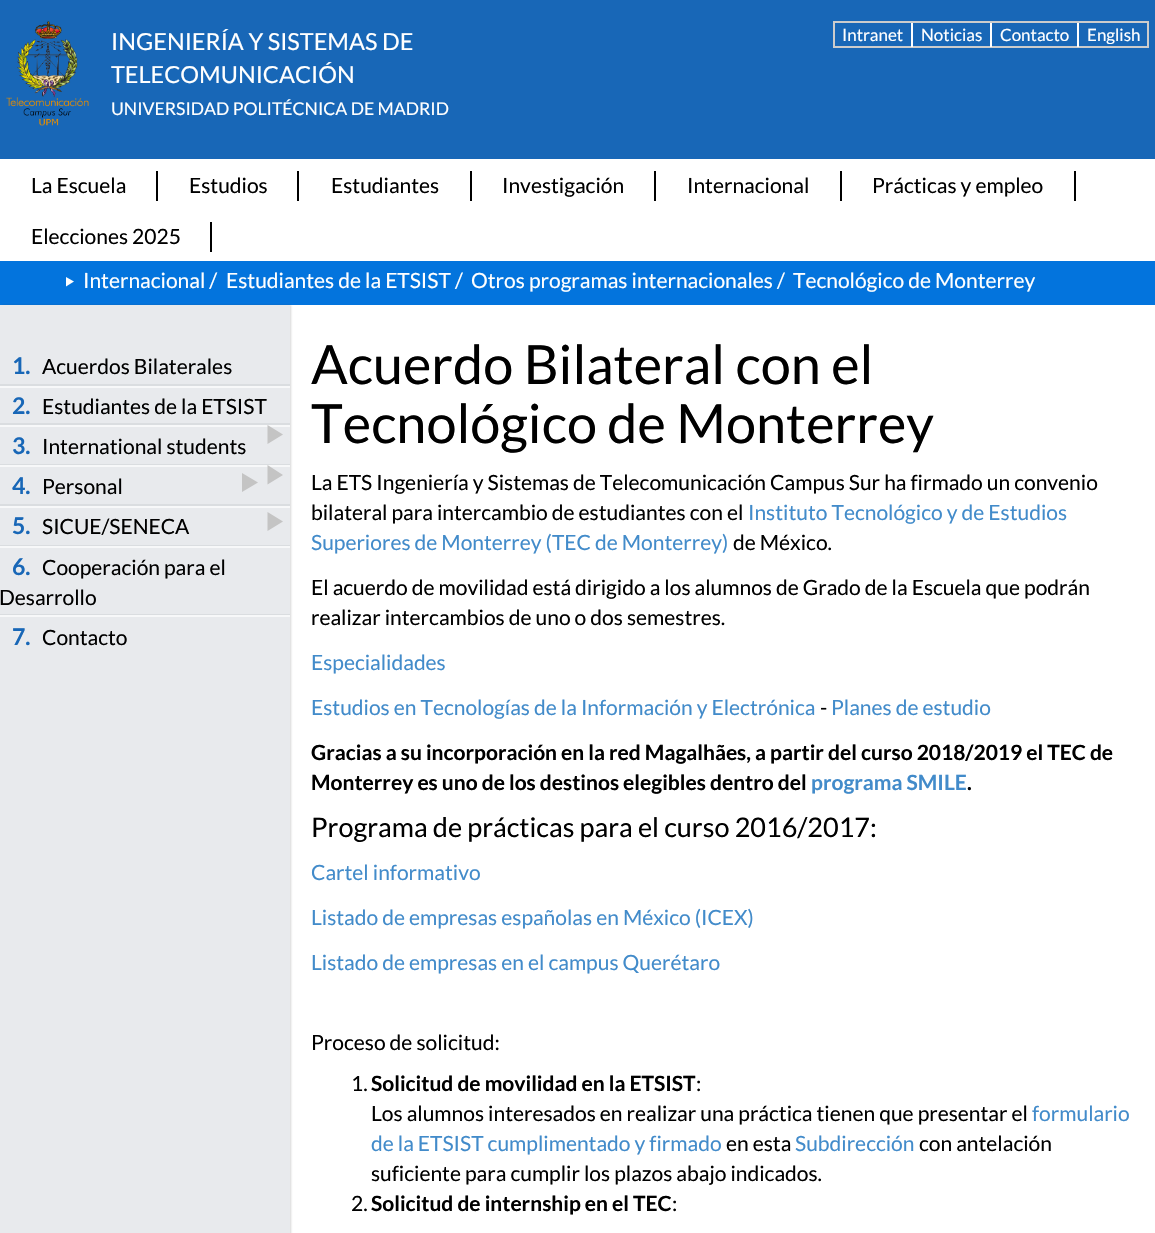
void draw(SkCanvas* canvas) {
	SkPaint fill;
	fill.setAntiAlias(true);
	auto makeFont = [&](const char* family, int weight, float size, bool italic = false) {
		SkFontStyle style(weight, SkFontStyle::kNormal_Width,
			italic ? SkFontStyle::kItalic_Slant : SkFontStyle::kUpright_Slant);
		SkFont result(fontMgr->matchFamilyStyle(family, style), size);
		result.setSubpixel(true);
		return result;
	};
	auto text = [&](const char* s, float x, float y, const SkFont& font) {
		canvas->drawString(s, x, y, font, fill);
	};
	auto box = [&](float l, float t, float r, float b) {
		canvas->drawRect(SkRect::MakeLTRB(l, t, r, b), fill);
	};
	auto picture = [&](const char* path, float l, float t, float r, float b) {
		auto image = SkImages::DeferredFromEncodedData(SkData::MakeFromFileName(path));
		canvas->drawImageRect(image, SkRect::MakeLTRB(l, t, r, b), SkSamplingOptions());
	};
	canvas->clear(0xFFFFFFFF);
	fill.setColor(0xFF1867B7);
	box(0, 0, 1155, 159);
	picture("image0.png", 6, 21, 89, 126);
	fill.setStyle(SkPaint::kStroke_Style);
	fill.setStrokeWidth(2);
	fill.setColor(0xFFCCCCCC);
	canvas->drawRect(SkRect::MakeLTRB(834, 22, 1148, 47), fill);
	fill.setStyle(SkPaint::kFill_Style);
	fill.setColor(0xFFFFFFFF);
	box(911, 23, 913, 47);
	box(990, 23, 992, 47);
	box(1077, 23, 1079, 47);
	fill.setColor(0xFF000000);
	box(156, 171, 158, 201);
	box(297, 171, 299, 201);
	box(470, 171, 472, 201);
	box(654, 171, 656, 201);
	box(840, 171, 842, 201);
	box(1074, 171, 1076, 201);
	box(210, 222, 212, 252);
	fill.setColor(0xFF0374DD);
	box(0, 261, 1155, 305);
	fill.setColor(0xFFFFFFFF);
	canvas->drawPath(SkPathBuilder().moveTo(66, 286.5f).lineTo(74, 281.5f).lineTo(66, 277).close().detach(), fill);
	fill.setColor(0x33323232);
	fill.setMaskFilter(SkMaskFilter::MakeBlur(kNormal_SkBlurStyle, 1));
	canvas->drawRect(SkRect::MakeLTRB(2, 305, 291, 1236), fill);
	fill.setMaskFilter(nullptr);
	fill.setColor(0xFFE8EAED);
	box(0, 305, 290, 1233);
	fill.setColor(0xFFDADDE0);
	box(0, 384, 290, 386);
	fill.setColor(0xFFF7F8F9);
	box(0, 386, 290, 388);
	fill.setColor(0xFFDADDE0);
	box(0, 423, 290, 425);
	fill.setColor(0xFFF7F8F9);
	box(0, 425, 290, 427);
	fill.setColor(0xFFDADDE0);
	box(0, 464, 290, 465);
	fill.setColor(0xFFF7F8F9);
	box(0, 465, 290, 467);
	fill.setColor(0xFFC4C4C4);
	canvas->drawPath(SkPathBuilder().moveTo(267.5f, 444).lineTo(283, 434.5f).lineTo(267.5f, 425).close().moveTo(267.5f, 484.5f).lineTo(283, 475).lineTo(267.5f, 465).close().detach(), fill);
	fill.setColor(0xFFDADDE0);
	box(0, 504, 290, 506);
	fill.setColor(0xFFF7F8F9);
	box(0, 506, 290, 508);
	fill.setColor(0xFFC4C4C4);
	canvas->drawPath(SkPathBuilder().moveTo(242, 492).lineTo(258, 482.5f).lineTo(242, 473).close().moveTo(267.5f, 531).lineTo(283, 521.5f).lineTo(267.5f, 512).close().detach(), fill);
	fill.setColor(0xFFDADDE0);
	box(0, 545, 290, 546);
	fill.setColor(0xFFF7F8F9);
	box(0, 546, 290, 548);
	fill.setColor(0xFFDADDE0);
	box(0, 614, 290, 615);
	fill.setColor(0xFFF7F8F9);
	box(0, 615, 290, 617);
	auto font1 = makeFont("Lato", 400, 23.5f);
	fill.setColor(0xFFFFFFFF);
	text("INGENIERÍA Y SISTEMAS DE", 111, 50, font1);
	text("TELECOMUNICACIÓN", 111, 83, font1);
	auto font2 = makeFont("Lato", 400, 17.6f);
	text("UNIVERSIDAD POLITÉCNICA DE MADRID", 111, 115, font2);
	auto font3 = makeFont("Lato", 400, 17);
	text("Intranet", 842, 41, font3);
	text("Noticias", 921, 41, font3);
	text("Contacto", 1000, 41, font3);
	text("English", 1087, 41, font3);
	auto font4 = makeFont("Lato", 400, 21);
	fill.setColor(0xFF000000);
	text("La Escuela", 31, 193, font4);
	text("Estudios", 189, 193, font4);
	text("Estudiantes", 331, 193, font4);
	text("Investigación", 502, 193, font4);
	text("Internacional", 687, 193, font4);
	text("Prácticas y empleo", 872, 193, font4);
	text("Elecciones 2025", 31, 244, font4);
	fill.setColor(0xFFFFFFFF);
	text("Internacional /", 83, 288, font4);
	text("Estudiantes de la ETSIST /", 226, 288, font4);
	text("Otros programas internacionales /", 471, 288, font4);
	text("Tecnológico de Monterrey", 793, 288, font4);
	auto font5 = makeFont("Lato", 700, 23);
	fill.setColor(0xFF1867B7);
	text("1.", 12, 374, font5);
	fill.setColor(0xFF000000);
	text("Acuerdos Bilaterales", 42, 374, font4);
	fill.setColor(0xFF1867B7);
	text("2.", 12, 414, font5);
	fill.setColor(0xFF000000);
	text("Estudiantes de la ETSIST", 42, 414, font4);
	fill.setColor(0xFF1867B7);
	text("3.", 12, 454, font5);
	fill.setColor(0xFF000000);
	text("International students", 42, 454, font4);
	fill.setColor(0xFF1867B7);
	text("4.", 12, 494, font5);
	fill.setColor(0xFF000000);
	text("Personal", 42, 494, font4);
	fill.setColor(0xFF1867B7);
	text("5.", 12, 534, font5);
	fill.setColor(0xFF000000);
	text("SICUE/SENECA", 42, 534, font4);
	fill.setColor(0xFF1867B7);
	text("6.", 12, 575, font5);
	fill.setColor(0xFF000000);
	text("Cooperación para el", 42, 575, font4);
	text("Desarrollo", -1, 605, font4);
	fill.setColor(0xFF1867B7);
	text("7.", 12, 645, font5);
	fill.setColor(0xFF000000);
	text("Contacto", 42, 645, font4);
	auto font6 = makeFont("Lato", 400, 54);
	text("Acuerdo Bilateral con el", 311, 384, font6);
	text("Tecnológico de Monterrey", 311, 443, font6);
	text("La ETS Ingeniería y Sistemas de Telecomunicación Campus Sur ha firmado un convenio", 311, 490, font4);
	text("bilateral para intercambio de estudiantes con el", 311, 520, font4);
	fill.setColor(0xFF428BCA);
	text("Instituto Tecnológico y de Estudios", 748, 520, font4);
	text("Superiores de Monterrey (TEC de Monterrey)", 311, 550, font4);
	fill.setColor(0xFF000000);
	text("de México.", 733, 550, font4);
	text("El acuerdo de movilidad está dirigido a los alumnos de Grado de la Escuela que podrán", 311, 595, font4);
	text("realizar intercambios de uno o dos semestres.", 311, 625, font4);
	fill.setColor(0xFF428BCA);
	text("Especialidades", 311, 670, font4);
	text("Estudios en Tecnologías de la Información y Electrónica", 311, 715, font4);
	fill.setColor(0xFF000000);
	text("-", 820, 715, font4);
	fill.setColor(0xFF428BCA);
	text("Planes de estudio", 831, 715, font4);
	auto font7 = makeFont("Lato", 700, 21);
	fill.setColor(0xFF000000);
	text("Gracias a su incorporación en la red Magalhães, a partir del curso 2018/2019 el TEC de", 311, 760, font7);
	text("Monterrey es uno de los destinos elegibles dentro del", 311, 790, font7);
	fill.setColor(0xFF428BCA);
	text("programa SMILE", 811, 790, font7);
	fill.setColor(0xFF000000);
	text(".", 967, 790, font7);
	auto font8 = makeFont("Lato", 400, 27);
	text("Programa de prácticas para el curso 2016/2017:", 311, 837, font8);
	fill.setColor(0xFF428BCA);
	text("Cartel informativo", 311, 880, font4);
	text("Listado de empresas españolas en México (ICEX)", 311, 925, font4);
	text("Listado de empresas en el campus Querétaro", 311, 970, font4);
	fill.setColor(0xFF000000);
	text("Proceso de solicitud:", 311, 1050, font4);
	text("1.", 351, 1091, font4);
	text("Solicitud de movilidad en la ETSIST", 371, 1091, font7);
	text(":", 696, 1091, font4);
	text("Los alumnos interesados en realizar una práctica tienen que presentar el", 371, 1121, font4);
	fill.setColor(0xFF428BCA);
	text("formulario", 1032, 1121, font4);
	text("de la ETSIST cumplimentado y firmado", 371, 1151, font4);
	fill.setColor(0xFF000000);
	text("en esta", 726, 1151, font4);
	fill.setColor(0xFF428BCA);
	text("Subdirección", 795, 1151, font4);
	fill.setColor(0xFF000000);
	text("con antelación", 919, 1151, font4);
	text("suficiente para cumplir los plazos abajo indicados.", 371, 1181, font4);
	text("2.", 351, 1211, font4);
	text("Solicitud de internship en el TEC", 371, 1211, font7);
	text(":", 672, 1211, font4);
}
